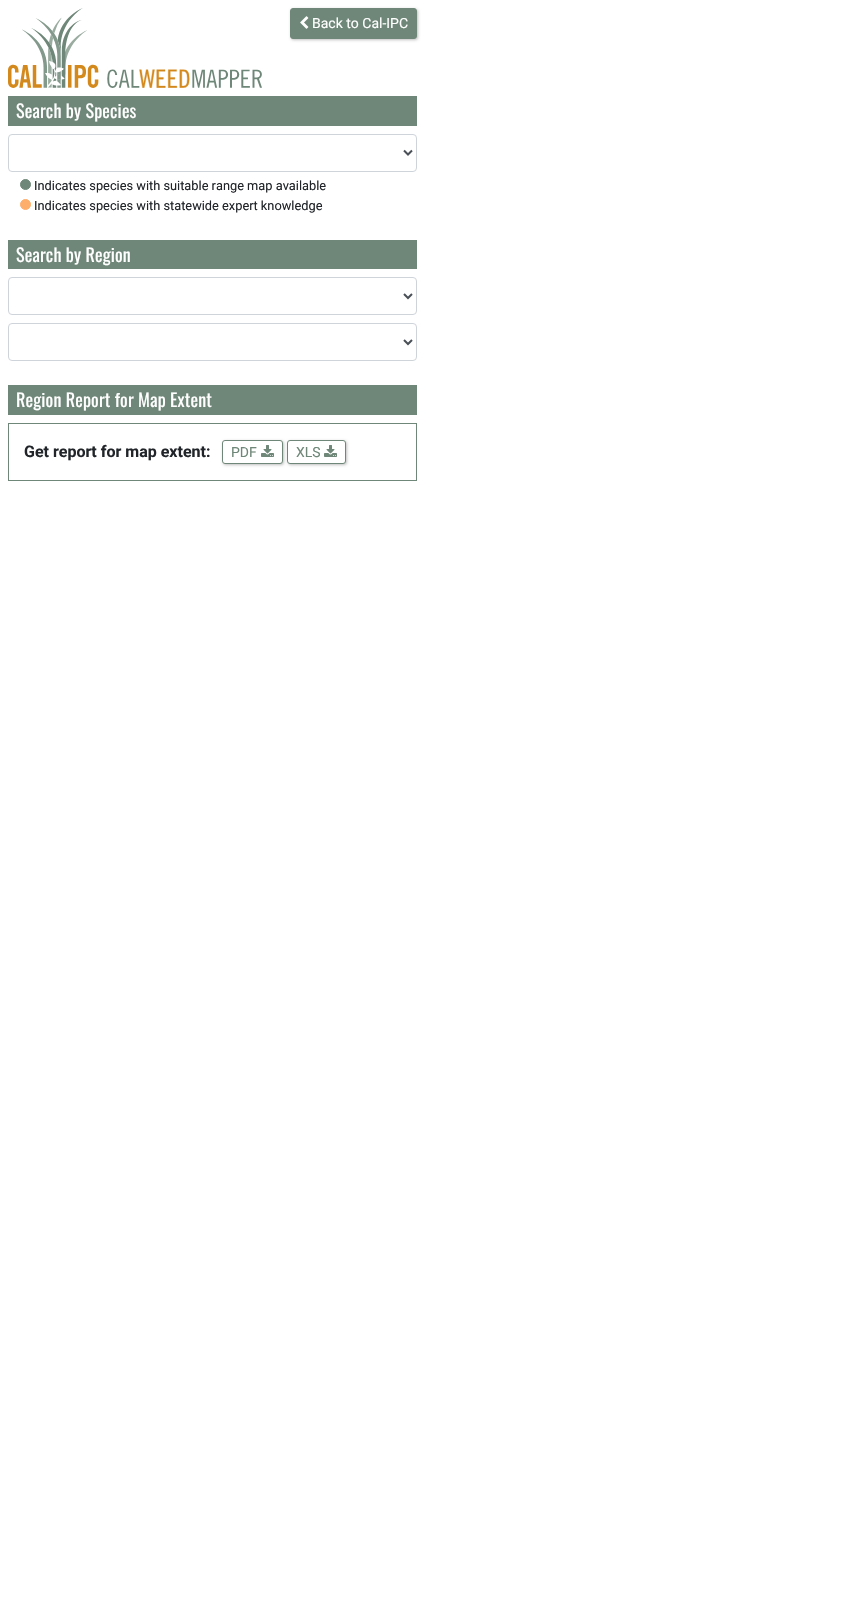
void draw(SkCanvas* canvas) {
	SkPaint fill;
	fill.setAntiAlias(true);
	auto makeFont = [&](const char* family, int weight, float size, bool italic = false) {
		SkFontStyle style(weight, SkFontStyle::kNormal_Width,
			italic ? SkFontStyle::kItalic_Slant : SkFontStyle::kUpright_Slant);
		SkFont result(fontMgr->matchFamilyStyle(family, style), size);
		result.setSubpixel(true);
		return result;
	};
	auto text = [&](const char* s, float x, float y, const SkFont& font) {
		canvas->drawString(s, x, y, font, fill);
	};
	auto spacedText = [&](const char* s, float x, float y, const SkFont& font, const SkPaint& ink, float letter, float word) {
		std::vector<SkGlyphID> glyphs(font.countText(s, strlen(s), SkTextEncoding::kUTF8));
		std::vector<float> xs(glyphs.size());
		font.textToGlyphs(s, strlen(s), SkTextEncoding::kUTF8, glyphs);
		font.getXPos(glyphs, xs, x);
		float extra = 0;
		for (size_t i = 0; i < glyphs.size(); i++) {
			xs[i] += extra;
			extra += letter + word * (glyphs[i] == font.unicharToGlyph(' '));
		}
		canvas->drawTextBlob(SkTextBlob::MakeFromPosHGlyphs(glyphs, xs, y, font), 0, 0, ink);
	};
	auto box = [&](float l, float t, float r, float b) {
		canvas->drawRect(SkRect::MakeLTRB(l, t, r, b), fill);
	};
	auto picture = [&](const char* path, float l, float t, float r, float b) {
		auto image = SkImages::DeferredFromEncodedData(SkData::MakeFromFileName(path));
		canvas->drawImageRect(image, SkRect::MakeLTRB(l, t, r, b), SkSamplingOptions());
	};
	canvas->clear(0xFFFFFFFF);
	picture("image0.png", 8, 8, 262, 88);
	fill.setColor(0x40000000);
	fill.setMaskFilter(SkMaskFilter::MakeBlur(kNormal_SkBlurStyle, 1.5f));
	canvas->drawRoundRect(SkRect::MakeLTRB(291, 9, 418, 40), 3, 3, fill);
	fill.setMaskFilter(nullptr);
	fill.setColor(0xFF6E8778);
	canvas->drawRoundRect(SkRect::MakeLTRB(290.5f, 8.5f, 416.5f, 38.5f), 2.5f, 2.5f, fill);
	fill.setStyle(SkPaint::kStroke_Style);
	fill.setStrokeWidth(1);
	canvas->drawRoundRect(SkRect::MakeLTRB(290.5f, 8.5f, 416.5f, 38.5f), 2.5f, 2.5f, fill);
	picture("image1.png", 300, 16, 309, 29);
	fill.setStyle(SkPaint::kFill_Style);
	box(8, 96, 417, 126);
	fill.setStyle(SkPaint::kStroke_Style);
	fill.setColor(0xFFCED4DA);
	canvas->drawRoundRect(SkRect::MakeLTRB(8.5f, 134.5f, 416.5f, 171.5f), 3.5f, 3.5f, fill);
	fill.setStrokeWidth(2);
	fill.setColor(0xFF495057);
	canvas->drawPath(SkPathBuilder().moveTo(404, 150.5f).lineTo(408, 154.5f).lineTo(412, 150.5f).detach(), fill);
	fill.setStyle(SkPaint::kFill_Style);
	fill.setColor(0xFF6E8778);
	canvas->drawCircle(25.5f, 184.5f, 5, fill);
	fill.setStyle(SkPaint::kStroke_Style);
	fill.setStrokeWidth(1);
	canvas->drawCircle(25.5f, 184.5f, 5, fill);
	fill.setStyle(SkPaint::kFill_Style);
	fill.setColor(0xFFFDAE6B);
	canvas->drawCircle(25.5f, 204.5f, 5, fill);
	fill.setStyle(SkPaint::kStroke_Style);
	canvas->drawCircle(25.5f, 204.5f, 5, fill);
	fill.setStyle(SkPaint::kFill_Style);
	fill.setColor(0xFF6E8778);
	box(8, 240, 417, 269);
	fill.setStyle(SkPaint::kStroke_Style);
	fill.setColor(0xFFCED4DA);
	canvas->drawRoundRect(SkRect::MakeLTRB(8.5f, 277.5f, 416.5f, 314.5f), 3.5f, 3.5f, fill);
	fill.setStrokeWidth(2);
	fill.setColor(0xFF495057);
	canvas->drawPath(SkPathBuilder().moveTo(404, 294).lineTo(408, 298).lineTo(412, 294).detach(), fill);
	fill.setStrokeWidth(1);
	fill.setColor(0xFFCED4DA);
	canvas->drawRoundRect(SkRect::MakeLTRB(8.5f, 323.5f, 416.5f, 360.5f), 3.5f, 3.5f, fill);
	fill.setStrokeWidth(2);
	fill.setColor(0xFF495057);
	canvas->drawPath(SkPathBuilder().moveTo(404, 340).lineTo(408, 344).lineTo(412, 340).detach(), fill);
	fill.setStyle(SkPaint::kFill_Style);
	fill.setColor(0xFF6E8778);
	box(8, 385, 417, 415);
	fill.setStyle(SkPaint::kStroke_Style);
	fill.setStrokeWidth(1);
	canvas->drawRect(SkRect::MakeLTRB(8.5f, 423.5f, 416.5f, 480.5f), fill);
	fill.setStyle(SkPaint::kFill_Style);
	fill.setColor(0x40000000);
	fill.setMaskFilter(SkMaskFilter::MakeBlur(kNormal_SkBlurStyle, 1.5f));
	canvas->drawRoundRect(SkRect::MakeLTRB(223, 441, 284, 465), 3, 3, fill);
	fill.setMaskFilter(nullptr);
	fill.setColor(0xFFFFFFFF);
	canvas->drawRoundRect(SkRect::MakeLTRB(222.5f, 440.5f, 282.5f, 463.5f), 2.5f, 2.5f, fill);
	fill.setStyle(SkPaint::kStroke_Style);
	fill.setColor(0xFF6E8778);
	canvas->drawRoundRect(SkRect::MakeLTRB(222.5f, 440.5f, 282.5f, 463.5f), 2.5f, 2.5f, fill);
	picture("image2.png", 261, 445, 274, 457);
	fill.setStyle(SkPaint::kFill_Style);
	fill.setColor(0x40000000);
	fill.setMaskFilter(SkMaskFilter::MakeBlur(kNormal_SkBlurStyle, 1.5f));
	canvas->drawRoundRect(SkRect::MakeLTRB(288, 441, 347, 465), 3, 3, fill);
	fill.setMaskFilter(nullptr);
	fill.setColor(0xFFFFFFFF);
	canvas->drawRoundRect(SkRect::MakeLTRB(287.5f, 440.5f, 345.5f, 463.5f), 2.5f, 2.5f, fill);
	fill.setStyle(SkPaint::kStroke_Style);
	fill.setColor(0xFF6E8778);
	canvas->drawRoundRect(SkRect::MakeLTRB(287.5f, 440.5f, 345.5f, 463.5f), 2.5f, 2.5f, fill);
	picture("image2.png", 324, 445, 337, 457);
	auto font1 = makeFont("Roboto", 400, 14);
	fill.setStyle(SkPaint::kFill_Style);
	fill.setColor(0xFFFFFFFF);
	text("Back to Cal-IPC", 312, 28, font1);
	auto font2 = makeFont("Oswald", 400, 18);
	spacedText("Search by Species", 16, 118, font2, fill, 0.15f, 0);
	auto font3 = makeFont("Roboto", 400, 12.8f);
	fill.setColor(0xFF212529);
	text("Indicates species with suitable range map available", 34, 190, font3);
	text("Indicates species with statewide expert knowledge", 34, 210, font3);
	fill.setColor(0xFFFFFFFF);
	spacedText("Search by Region", 16, 262, font2, fill, 0.15f, 0);
	spacedText("Region Report for Map Extent", 16, 407, font2, fill, 0.15f, 0);
	auto font4 = makeFont("Roboto", 700, 16);
	fill.setColor(0xFF212529);
	text("Get report for map extent:", 24, 457, font4);
	fill.setColor(0xFF6E8778);
	text("PDF", 231, 457, font1);
	text("XLS", 296, 457, font1);
}
